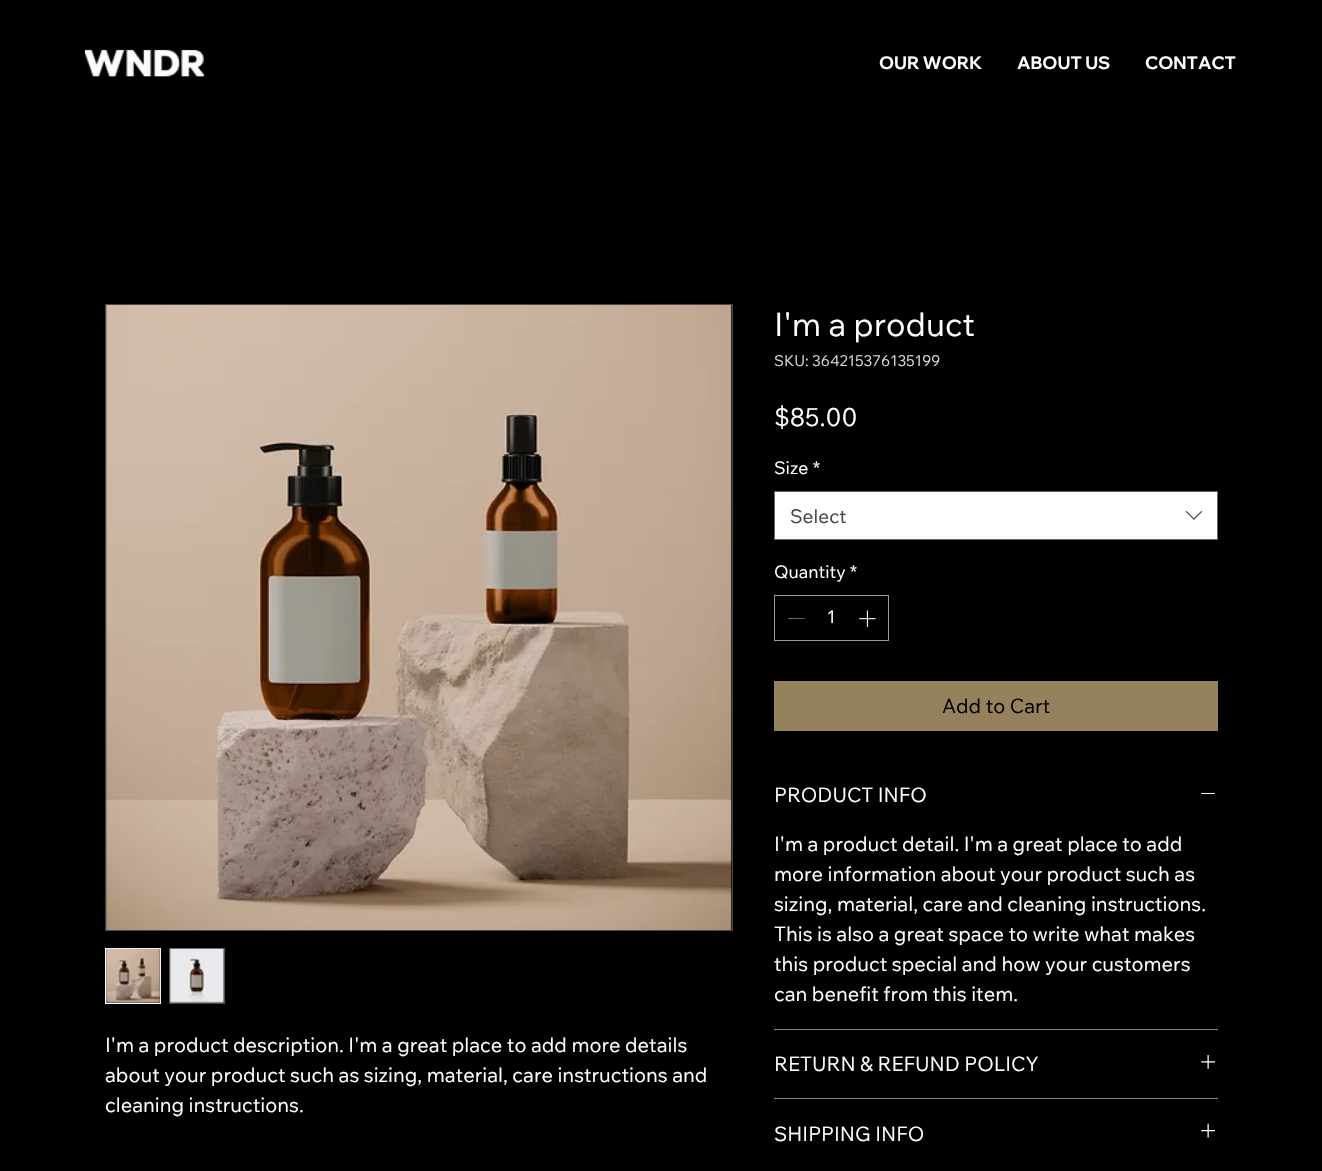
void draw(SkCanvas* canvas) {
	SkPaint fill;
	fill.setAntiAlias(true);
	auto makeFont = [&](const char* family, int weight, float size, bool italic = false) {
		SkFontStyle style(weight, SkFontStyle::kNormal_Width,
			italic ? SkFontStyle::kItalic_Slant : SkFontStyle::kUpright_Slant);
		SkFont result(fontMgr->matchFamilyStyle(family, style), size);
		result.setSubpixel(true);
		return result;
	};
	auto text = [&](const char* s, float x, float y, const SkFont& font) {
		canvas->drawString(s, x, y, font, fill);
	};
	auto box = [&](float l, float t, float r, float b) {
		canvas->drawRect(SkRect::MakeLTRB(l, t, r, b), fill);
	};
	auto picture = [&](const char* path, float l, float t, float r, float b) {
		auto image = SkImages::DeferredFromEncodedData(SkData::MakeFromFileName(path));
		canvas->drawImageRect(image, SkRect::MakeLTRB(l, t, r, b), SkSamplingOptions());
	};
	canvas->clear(0xFF000000);
	picture("image0.png", 85, 49, 204, 77);
	fill.setStyle(SkPaint::kStroke_Style);
	fill.setStrokeWidth(1);
	fill.setColor(0xFF4A4846);
	canvas->drawRect(SkRect::MakeLTRB(105.5f, 304.5f, 732.5f, 930.5f), fill);
	picture("image1.png", 106, 305, 732, 930);
	fill.setStyle(SkPaint::kFill_Style);
	canvas->drawRect(SkRect::MakeLTRB(105.5f, 948.5f, 160.5f, 1003.5f), fill);
	fill.setStyle(SkPaint::kStroke_Style);
	fill.setColor(0xFFFFFFFF);
	canvas->drawRect(SkRect::MakeLTRB(105.5f, 948.5f, 160.5f, 1003.5f), fill);
	picture("image2.png", 106, 948, 161, 1003);
	fill.setStyle(SkPaint::kFill_Style);
	fill.setColor(0xFF4A4846);
	box(169, 948, 225, 1004);
	picture("image3.png", 169, 948, 225, 1003);
	fill.setColor(0xFFFFFFFF);
	canvas->drawRect(SkRect::MakeLTRB(774.5f, 491.5f, 1217.5f, 539.5f), fill);
	fill.setStyle(SkPaint::kStroke_Style);
	fill.setColor(0xFF666666);
	canvas->drawRect(SkRect::MakeLTRB(774.5f, 491.5f, 1217.5f, 539.5f), fill);
	picture("image4.png", 1185, 510, 1203, 520);
	fill.setColor(0xFF999999);
	canvas->drawRect(SkRect::MakeLTRB(774.5f, 595.5f, 888.5f, 640.5f), fill);
	fill.setStyle(SkPaint::kFill_Style);
	fill.setColor(0xFF646464);
	box(788, 618, 805, 619);
	picture("image5.png", 859, 610, 876, 627);
	fill.setColor(0xFF95815B);
	box(774, 681, 1218, 731);
	fill.setColor(0xFF87837E);
	box(774, 1029, 1218, 1030);
	fill.setColor(0xFFFFFFFF);
	box(1201, 793, 1215, 794);
	fill.setColor(0xFF87837E);
	box(774, 1098, 1218, 1099);
	picture("image6.png", 1201, 1055, 1215, 1069);
	picture("image7.png", 1201, 1123, 1215, 1138);
	auto font1 = makeFont("Wix Madefor Display", 700, 17.5f);
	fill.setColor(0xFFFFFFFF);
	text("OUR WORK", 879, 69, font1);
	text("ABOUT US", 1017, 69, font1);
	text("CONTACT", 1145, 69, font1);
	auto font2 = makeFont("Wix Madefor Text", 400, 20);
	text("I'm a product description. I'm a great place to add more details", 105, 1052, font2);
	text("about your product such as sizing, material, care instructions and", 105, 1082, font2);
	text("cleaning instructions.", 105, 1112, font2);
	auto font3 = makeFont("Wix Madefor Text", 400, 32.5f);
	text("I'm a product", 774, 336, font3);
	auto font4 = makeFont("Wix Madefor Text", 400, 15);
	fill.setColor(0xFFDBD9D7);
	text("SKU: 364215376135199", 774, 366, font4);
	auto font5 = makeFont("Wix Madefor Text", 400, 25);
	fill.setColor(0xFFFFFFFF);
	text("$85.00", 774, 426, font5);
	auto font6 = makeFont("Wix Madefor Text", 400, 17.5f);
	text("Size", 774, 474, font6);
	text("*", 813, 474, font6);
	auto font7 = makeFont("Wix Madefor Text", 400, 19);
	fill.setColor(0xFF444444);
	text("Select", 790, 523, font7);
	fill.setColor(0xFFFFFFFF);
	text("Quantity", 774, 578, font6);
	text("*", 850, 578, font6);
	text("1", 827, 623, font6);
	fill.setColor(0xFF000000);
	text("Add to Cart", 942, 713, font2);
	fill.setColor(0xFFFFFFFF);
	text("PRODUCT INFO", 774, 802, font2);
	text("I'm a product detail. I'm a great place to add", 774, 851, font2);
	text("more information about your product such as", 774, 881, font2);
	text("sizing, material, care and cleaning instructions.", 774, 911, font2);
	text("This is also a great space to write what makes", 774, 941, font2);
	text("this product special and how your customers", 774, 971, font2);
	text("can benefit from this item.", 774, 1001, font2);
	text("RETURN & REFUND POLICY", 774, 1071, font2);
	text("SHIPPING INFO", 774, 1141, font2);
}
